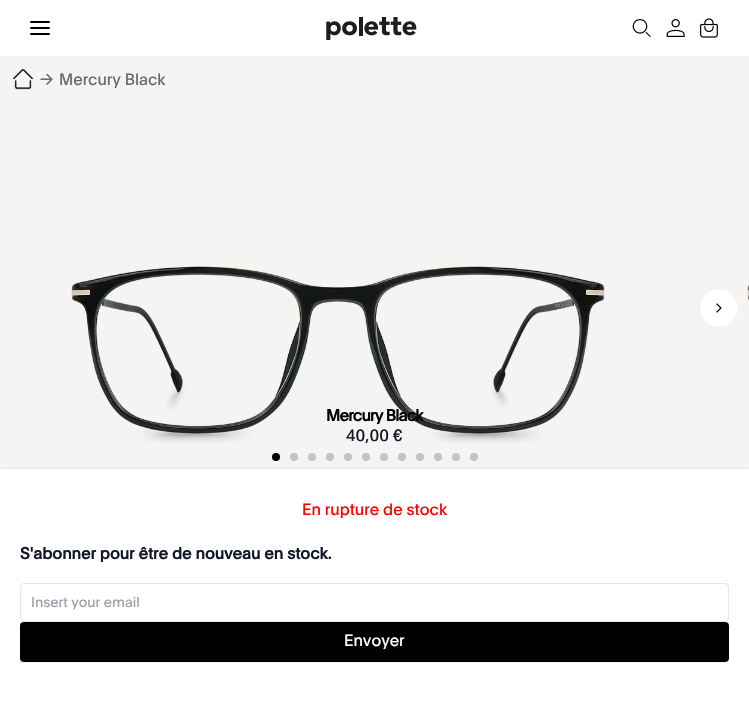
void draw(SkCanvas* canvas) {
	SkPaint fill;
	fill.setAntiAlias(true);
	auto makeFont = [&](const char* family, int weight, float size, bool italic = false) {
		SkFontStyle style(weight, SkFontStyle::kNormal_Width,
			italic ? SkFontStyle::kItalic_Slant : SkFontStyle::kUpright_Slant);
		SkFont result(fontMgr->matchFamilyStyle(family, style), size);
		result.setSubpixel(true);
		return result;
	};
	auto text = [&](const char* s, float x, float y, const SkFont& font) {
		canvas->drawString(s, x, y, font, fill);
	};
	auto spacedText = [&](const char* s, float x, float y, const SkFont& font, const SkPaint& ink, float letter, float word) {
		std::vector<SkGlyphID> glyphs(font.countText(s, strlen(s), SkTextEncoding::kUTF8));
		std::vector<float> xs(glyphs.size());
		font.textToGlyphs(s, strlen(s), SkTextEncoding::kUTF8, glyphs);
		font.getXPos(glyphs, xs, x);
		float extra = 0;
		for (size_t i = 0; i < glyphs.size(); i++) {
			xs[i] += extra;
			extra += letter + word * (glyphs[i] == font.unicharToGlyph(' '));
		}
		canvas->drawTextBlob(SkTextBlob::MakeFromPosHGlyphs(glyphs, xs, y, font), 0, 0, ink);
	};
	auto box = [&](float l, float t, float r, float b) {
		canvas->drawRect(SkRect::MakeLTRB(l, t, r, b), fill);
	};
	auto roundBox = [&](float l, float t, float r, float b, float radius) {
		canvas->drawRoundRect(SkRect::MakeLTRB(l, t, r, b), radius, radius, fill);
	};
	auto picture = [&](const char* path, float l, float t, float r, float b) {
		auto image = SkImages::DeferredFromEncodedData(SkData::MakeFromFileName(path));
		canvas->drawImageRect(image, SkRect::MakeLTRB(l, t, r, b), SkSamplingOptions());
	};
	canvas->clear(0xFFFFFFFF);
	fill.setColor(0xFFF2F2F2);
	box(0, 56, 749, 57);
	fill.setStyle(SkPaint::kStroke_Style);
	fill.setStrokeWidth(2);
	fill.setStrokeCap(SkPaint::kRound_Cap);
	fill.setStrokeJoin(SkPaint::kRound_Join);
	fill.setColor(0xFF000000);
	canvas->drawPath(SkPathBuilder().moveTo(31, 28).lineTo(49, 28).moveTo(31, 22).lineTo(49, 22).moveTo(31, 34).lineTo(49, 34).detach(), fill);
	picture("image0.png", 326, 17, 417, 40);
	picture("image1.png", 632, 19, 651, 37);
	picture("image2.png", 666, 19, 685, 37);
	picture("image3.png", 700, 18, 718, 38);
	fill.setStyle(SkPaint::kFill_Style);
	fill.setColor(0xFFF6F4F3);
	box(0, 57, 749, 469);
	picture("image4.png", 12, 68, 34, 90);
	picture("image5.png", 71, 266, 605, 443);
	picture("image6.png", 747, 285, 749, 300);
	picture("image7.png", 699, 288, 739, 328);
	fill.setColor(0xFF000000);
	canvas->drawCircle(276, 457, 4, fill);
	fill.setColor(0xFFC5C3C2);
	canvas->drawCircle(294, 457, 4, fill);
	canvas->drawCircle(312, 457, 4, fill);
	canvas->drawCircle(330, 457, 4, fill);
	canvas->drawCircle(348, 457, 4, fill);
	canvas->drawCircle(366, 457, 4, fill);
	canvas->drawCircle(384, 457, 4, fill);
	canvas->drawCircle(402, 457, 4, fill);
	canvas->drawCircle(420, 457, 4, fill);
	canvas->drawCircle(438, 457, 4, fill);
	canvas->drawCircle(456, 457, 4, fill);
	canvas->drawCircle(474, 457, 4, fill);
	fill.setColor(0x1A000000);
	fill.setMaskFilter(SkMaskFilter::MakeBlur(kNormal_SkBlurStyle, 1));
	canvas->drawRect(SkRect::MakeLTRB(0, 469, 749, 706), fill);
	fill.setMaskFilter(nullptr);
	fill.setColor(0xFFFFFFFF);
	box(0, 469, 749, 703);
	fill.setStyle(SkPaint::kStroke_Style);
	fill.setStrokeWidth(1);
	fill.setStrokeCap(SkPaint::kButt_Cap);
	fill.setStrokeJoin(SkPaint::kMiter_Join);
	fill.setColor(0xFFE6E6E6);
	canvas->drawRoundRect(SkRect::MakeLTRB(20.5f, 583.5f, 728.5f, 621.5f), 3.5f, 3.5f, fill);
	fill.setStyle(SkPaint::kFill_Style);
	fill.setColor(0xFF000000);
	roundBox(20, 622, 729, 662, 4);
	fill.setColor(0xFFF2F2F2);
	box(20, 662, 729, 663);
	auto font1 = makeFont("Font", 400, 16);
	fill.setColor(0xFF696969);
	text("→", 40, 85, font1);
	text("Mercury Black", 59, 85, font1);
	auto font2 = makeFont("Font", 700, 16);
	fill.setColor(0xFF000000);
	spacedText("Mercury Black", 326, 421, font2, fill, -0.75f, 0);
	fill.setColor(0xFF111827);
	text("40,00 €", 346, 441, font1);
	fill.setColor(0xFFFF0000);
	text("En rupture de stock", 302, 515, font1);
	fill.setColor(0xFF111827);
	text("S'abonner pour être de nouveau en stock.", 20, 559, font2);
	auto font3 = makeFont("Font", 400, 14);
	fill.setColor(0xFF9CA3AF);
	text("Insert your email", 31, 607, font3);
	fill.setColor(0xFFFFFFFF);
	text("Envoyer", 344, 646, font1);
}
